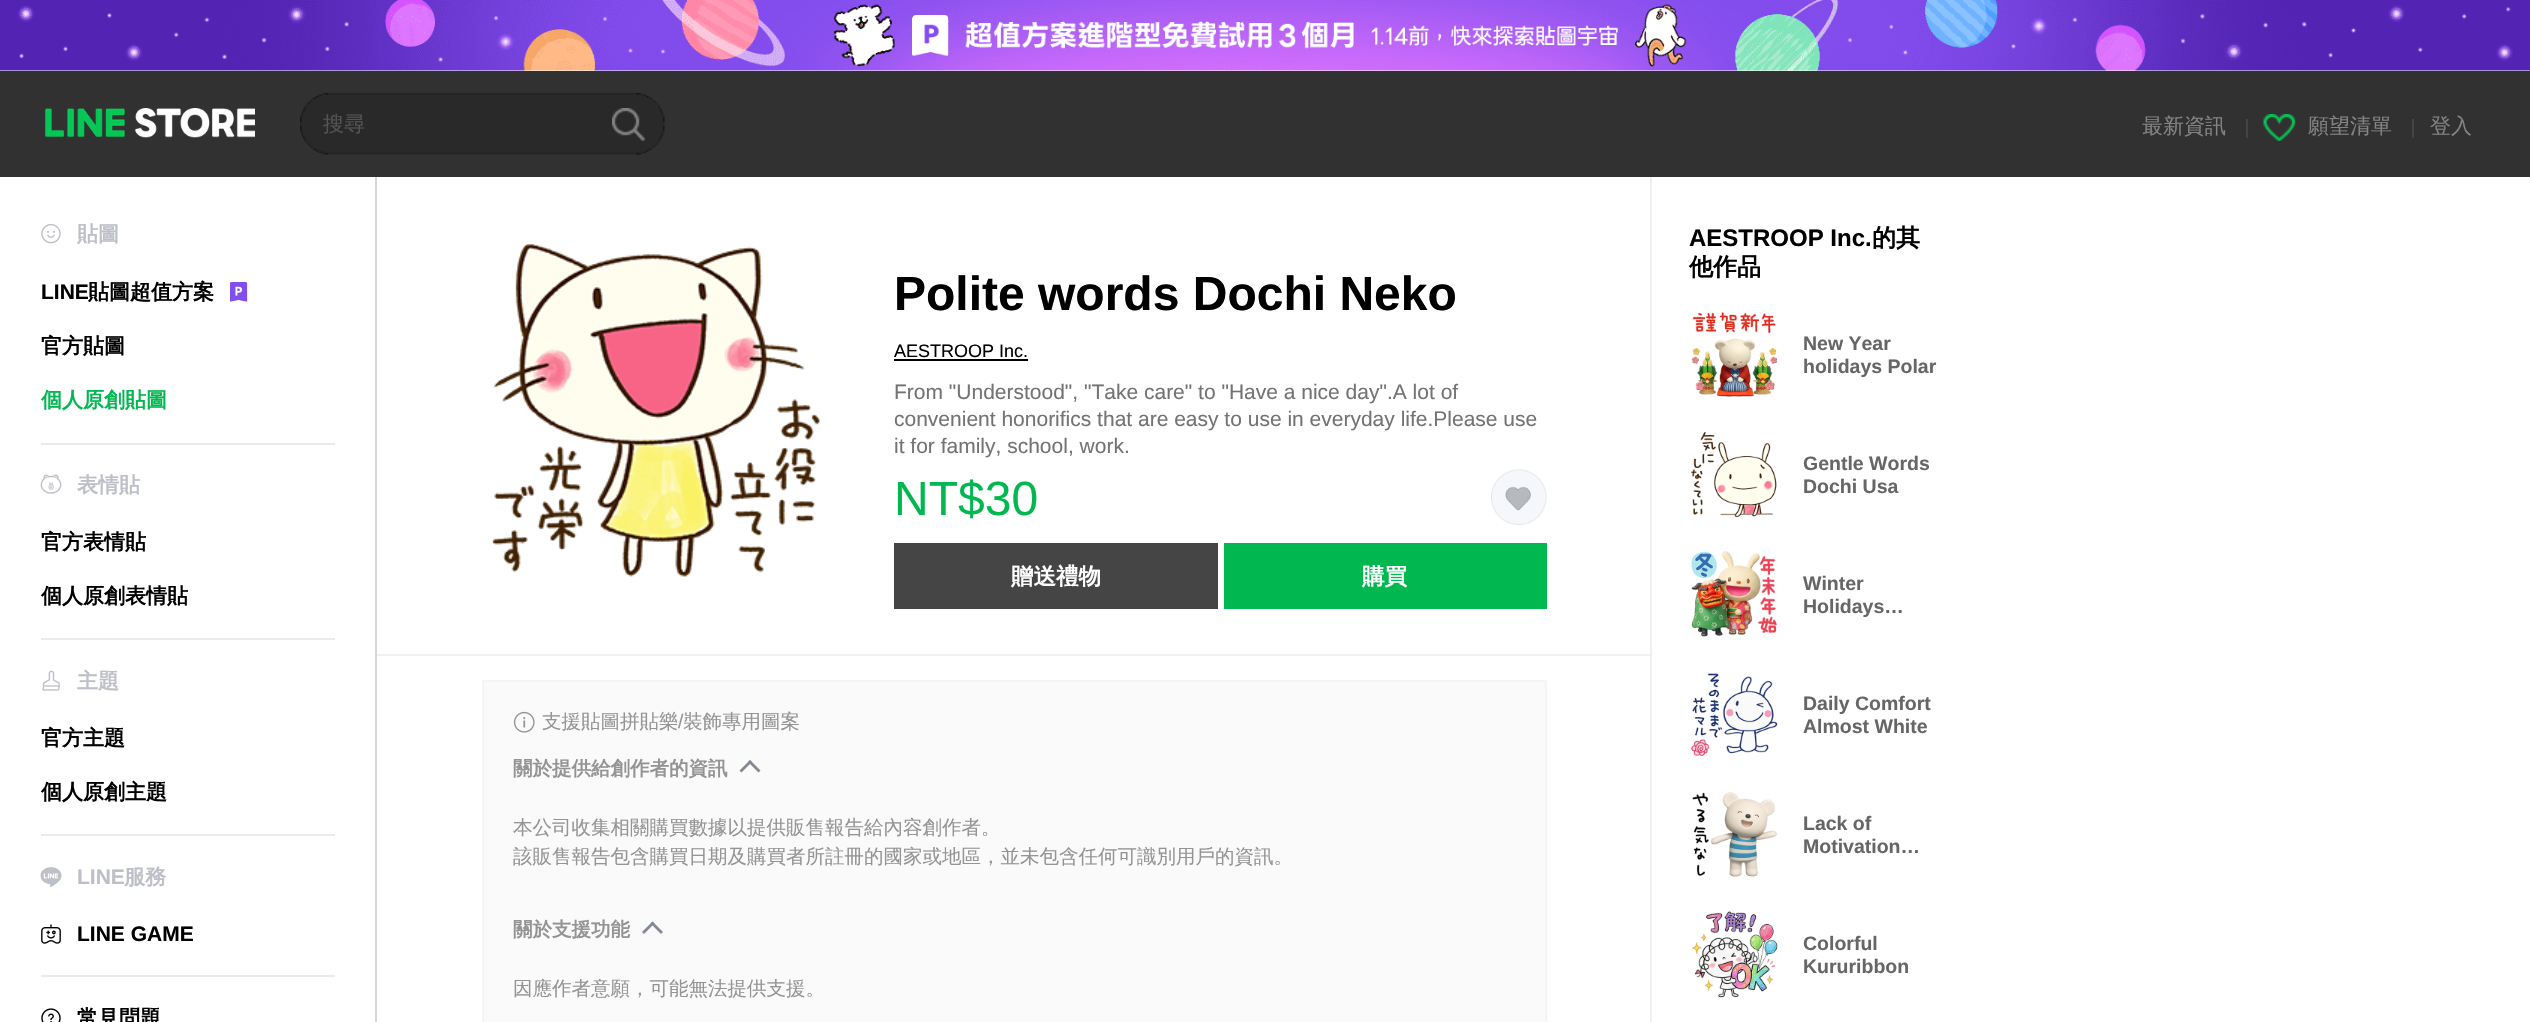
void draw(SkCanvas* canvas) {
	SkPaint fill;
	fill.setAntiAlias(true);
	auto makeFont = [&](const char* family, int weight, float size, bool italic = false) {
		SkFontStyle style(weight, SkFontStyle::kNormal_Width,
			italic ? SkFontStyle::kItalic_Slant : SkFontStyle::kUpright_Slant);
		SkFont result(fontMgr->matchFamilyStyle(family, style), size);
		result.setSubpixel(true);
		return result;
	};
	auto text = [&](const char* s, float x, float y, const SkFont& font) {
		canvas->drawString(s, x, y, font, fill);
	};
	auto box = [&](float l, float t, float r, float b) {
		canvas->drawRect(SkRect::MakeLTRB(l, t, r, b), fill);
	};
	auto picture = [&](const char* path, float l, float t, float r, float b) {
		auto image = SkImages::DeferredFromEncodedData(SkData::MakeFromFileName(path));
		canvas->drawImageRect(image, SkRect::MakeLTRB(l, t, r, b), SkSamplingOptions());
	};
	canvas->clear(0xFFFFFFFF);
	picture("image0.png", 0, 0, 2530, 71);
	fill.setColor(0xFF313131);
	box(0, 71, 2530, 177);
	picture("image1.png", 45, 108, 255, 138);
	picture("image2.png", 300, 93, 665, 155);
	picture("image3.png", 612, 108, 645, 141);
	fill.setColor(0xFF444444);
	box(2246, 119, 2248, 138);
	picture("image4.png", 2263, 114, 2296, 141);
	box(2412, 119, 2414, 138);
	picture("image5.png", 41, 223, 61, 244);
	picture("image6.png", 230, 282, 248, 302);
	fill.setColor(0xFFEBEBEB);
	box(41, 443, 335, 445);
	picture("image7.png", 40, 474, 62, 494);
	box(41, 638, 335, 640);
	picture("image8.png", 42, 670, 60, 691);
	box(41, 834, 335, 836);
	picture("image9.png", 40, 867, 62, 887);
	picture("image10.png", 41, 924, 61, 944);
	box(41, 975, 335, 977);
	picture("image11.png", 41, 1008, 61, 1022);
	fill.setColor(0xFFD6D6D6);
	box(375, 177, 377, 1022);
	picture("image12.png", 492, 244, 820, 577);
	fill.setColor(0xFF000000);
	box(894, 359, 1028, 361);
	picture("image13.png", 1491, 469, 1547, 525);
	fill.setColor(0xFF454545);
	box(894, 543, 1218, 609);
	fill.setColor(0xFF00B84F);
	box(1224, 543, 1547, 609);
	fill.setColor(0xFFF2F2F2);
	box(377, 654, 1652, 656);
	fill.setColor(0xFFEFEFEF);
	box(1650, 177, 1652, 1022);
	fill.setColor(0xFFFAFAFA);
	canvas->drawRect(SkRect::MakeLTRB(483, 681, 1546, 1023), fill);
	fill.setStyle(SkPaint::kStroke_Style);
	fill.setStrokeWidth(2);
	fill.setColor(0xFFF5F5F5);
	canvas->drawRect(SkRect::MakeLTRB(483, 681, 1546, 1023), fill);
	picture("image14.png", 513, 711, 535, 733);
	fill.setStyle(SkPaint::kFill_Style);
	fill.setColor(0xFF848A94);
	canvas->drawPath(SkPathBuilder().moveTo(739.5f, 770.5f).lineTo(750, 760).lineTo(752, 762).lineTo(741.5f, 772.5f).close().detach(), fill);
	canvas->drawPath(SkPathBuilder().moveTo(748, 762).lineTo(750, 760).lineTo(760.5f, 770.5f).lineTo(758.5f, 772.5f).close().detach(), fill);
	canvas->drawPath(SkPathBuilder().moveTo(642, 932).lineTo(652.5f, 921.5f).lineTo(654.5f, 923.5f).lineTo(644, 934).close().detach(), fill);
	canvas->drawPath(SkPathBuilder().moveTo(650.5f, 923.5f).lineTo(652.5f, 921.5f).lineTo(663, 932).lineTo(661, 934).close().detach(), fill);
	picture("image15.png", 1691, 312, 1778, 397);
	picture("image16.png", 1691, 432, 1777, 517);
	picture("image17.png", 1691, 551, 1777, 637);
	picture("image18.png", 1691, 673, 1778, 756);
	picture("image19.png", 1692, 792, 1777, 877);
	picture("image20.png", 1692, 911, 1778, 998);
	auto font1 = makeFont("WenQuanYi Zen Hei", 500, 21);
	fill.setColor(0xFF545454);
	text("搜尋", 323, 131, font1);
	fill.setColor(0xFF848484);
	text("最新資訊", 2142, 133, font1);
	text("願望清單", 2308, 133, font1);
	text("登入", 2430, 133, font1);
	auto font2 = makeFont("WenQuanYi Zen Hei", 700, 21);
	fill.setColor(0xFFBEC0C7);
	text("貼圖", 77, 241, font2);
	auto font3 = makeFont("Liberation Sans", 700, 21);
	fill.setColor(0xFF000000);
	text("LINE", 41, 299, font3);
	text("貼圖超值方案", 88, 299, font2);
	text("官方貼圖", 41, 353, font2);
	fill.setColor(0xFF00B84F);
	text("個人原創貼圖", 41, 407, font2);
	fill.setColor(0xFFBEC0C7);
	text("表情貼", 77, 492, font2);
	fill.setColor(0xFF000000);
	text("官方表情貼", 41, 549, font2);
	text("個人原創表情貼", 41, 603, font2);
	fill.setColor(0xFFBEC0C7);
	text("主題", 77, 688, font2);
	fill.setColor(0xFF000000);
	text("官方主題", 41, 745, font2);
	text("個人原創主題", 41, 799, font2);
	fill.setColor(0xFFBEC0C7);
	text("LINE", 77, 884, font3);
	text("服務", 124, 884, font2);
	fill.setColor(0xFF000000);
	text("LINE GAME", 77, 941, font3);
	text("常見問題", 77, 1025, font2);
	auto font4 = makeFont("Liberation Sans", 700, 48);
	text("Polite words Dochi Neko", 894, 310, font4);
	auto font5 = makeFont("Liberation Sans", 400, 18);
	text("AESTROOP Inc.", 894, 357, font5);
	auto font6 = makeFont("Liberation Sans", 400, 21);
	fill.setColor(0xFF737373);
	text("From \"Understood\", \"Take care\" to \"Have a nice day\".A lot of", 894, 399, font6);
	text("convenient honorifics that are easy to use in everyday life.Please use", 894, 426, font6);
	text("it for family, school, work.", 894, 453, font6);
	auto font7 = makeFont("Liberation Sans", 400, 48);
	fill.setColor(0xFF00B84F);
	text("NT$30", 894, 515, font7);
	auto font8 = makeFont("WenQuanYi Zen Hei", 700, 22.5f);
	fill.setColor(0xFFFFFFFF);
	text("贈送禮物", 1011, 584, font8);
	text("購買", 1362, 584, font8);
	auto font9 = makeFont("WenQuanYi Zen Hei", 500, 19.5f);
	fill.setColor(0xFF949494);
	text("支援貼圖拼貼樂", 542, 728, font9);
	auto font10 = makeFont("Liberation Sans", 400, 19.5f);
	text("/", 678, 728, font10);
	text("裝飾專用圖案", 683, 728, font9);
	auto font11 = makeFont("WenQuanYi Zen Hei", 700, 19.5f);
	text("關於提供給創作者的資訊", 513, 775, font11);
	text("本公司收集相關購買數據以提供販售報告給內容創作者。", 513, 834, font9);
	text("該販售報告包含購買日期及購買者所註冊的國家或地區，並未包含任何可識別用戶的資訊。", 513, 863, font9);
	text("關於支援功能", 513, 936, font11);
	text("因應作者意願，可能無法提供支援。", 513, 995, font9);
	auto font12 = makeFont("Liberation Sans", 700, 24);
	fill.setColor(0xFF000000);
	text("AESTROOP Inc.", 1689, 246, font12);
	auto font13 = makeFont("WenQuanYi Zen Hei", 700, 24);
	text("的其", 1872, 246, font13);
	text("他作品", 1689, 275, font13);
	auto font14 = makeFont("Liberation Sans", 700, 19.5f);
	fill.setColor(0xFF666666);
	text("New Year", 1803, 350, font14);
	text("holidays Polar", 1803, 373, font14);
	text("Gentle Words", 1803, 470, font14);
	text("Dochi Usa", 1803, 493, font14);
	text("Winter", 1803, 590, font14);
	text("Holidays…", 1803, 613, font14);
	text("Daily Comfort", 1803, 710, font14);
	text("Almost White", 1803, 733, font14);
	text("Lack of", 1803, 830, font14);
	text("Motivation…", 1803, 853, font14);
	text("Colorful", 1803, 950, font14);
	text("Kururibbon", 1803, 973, font14);
}
